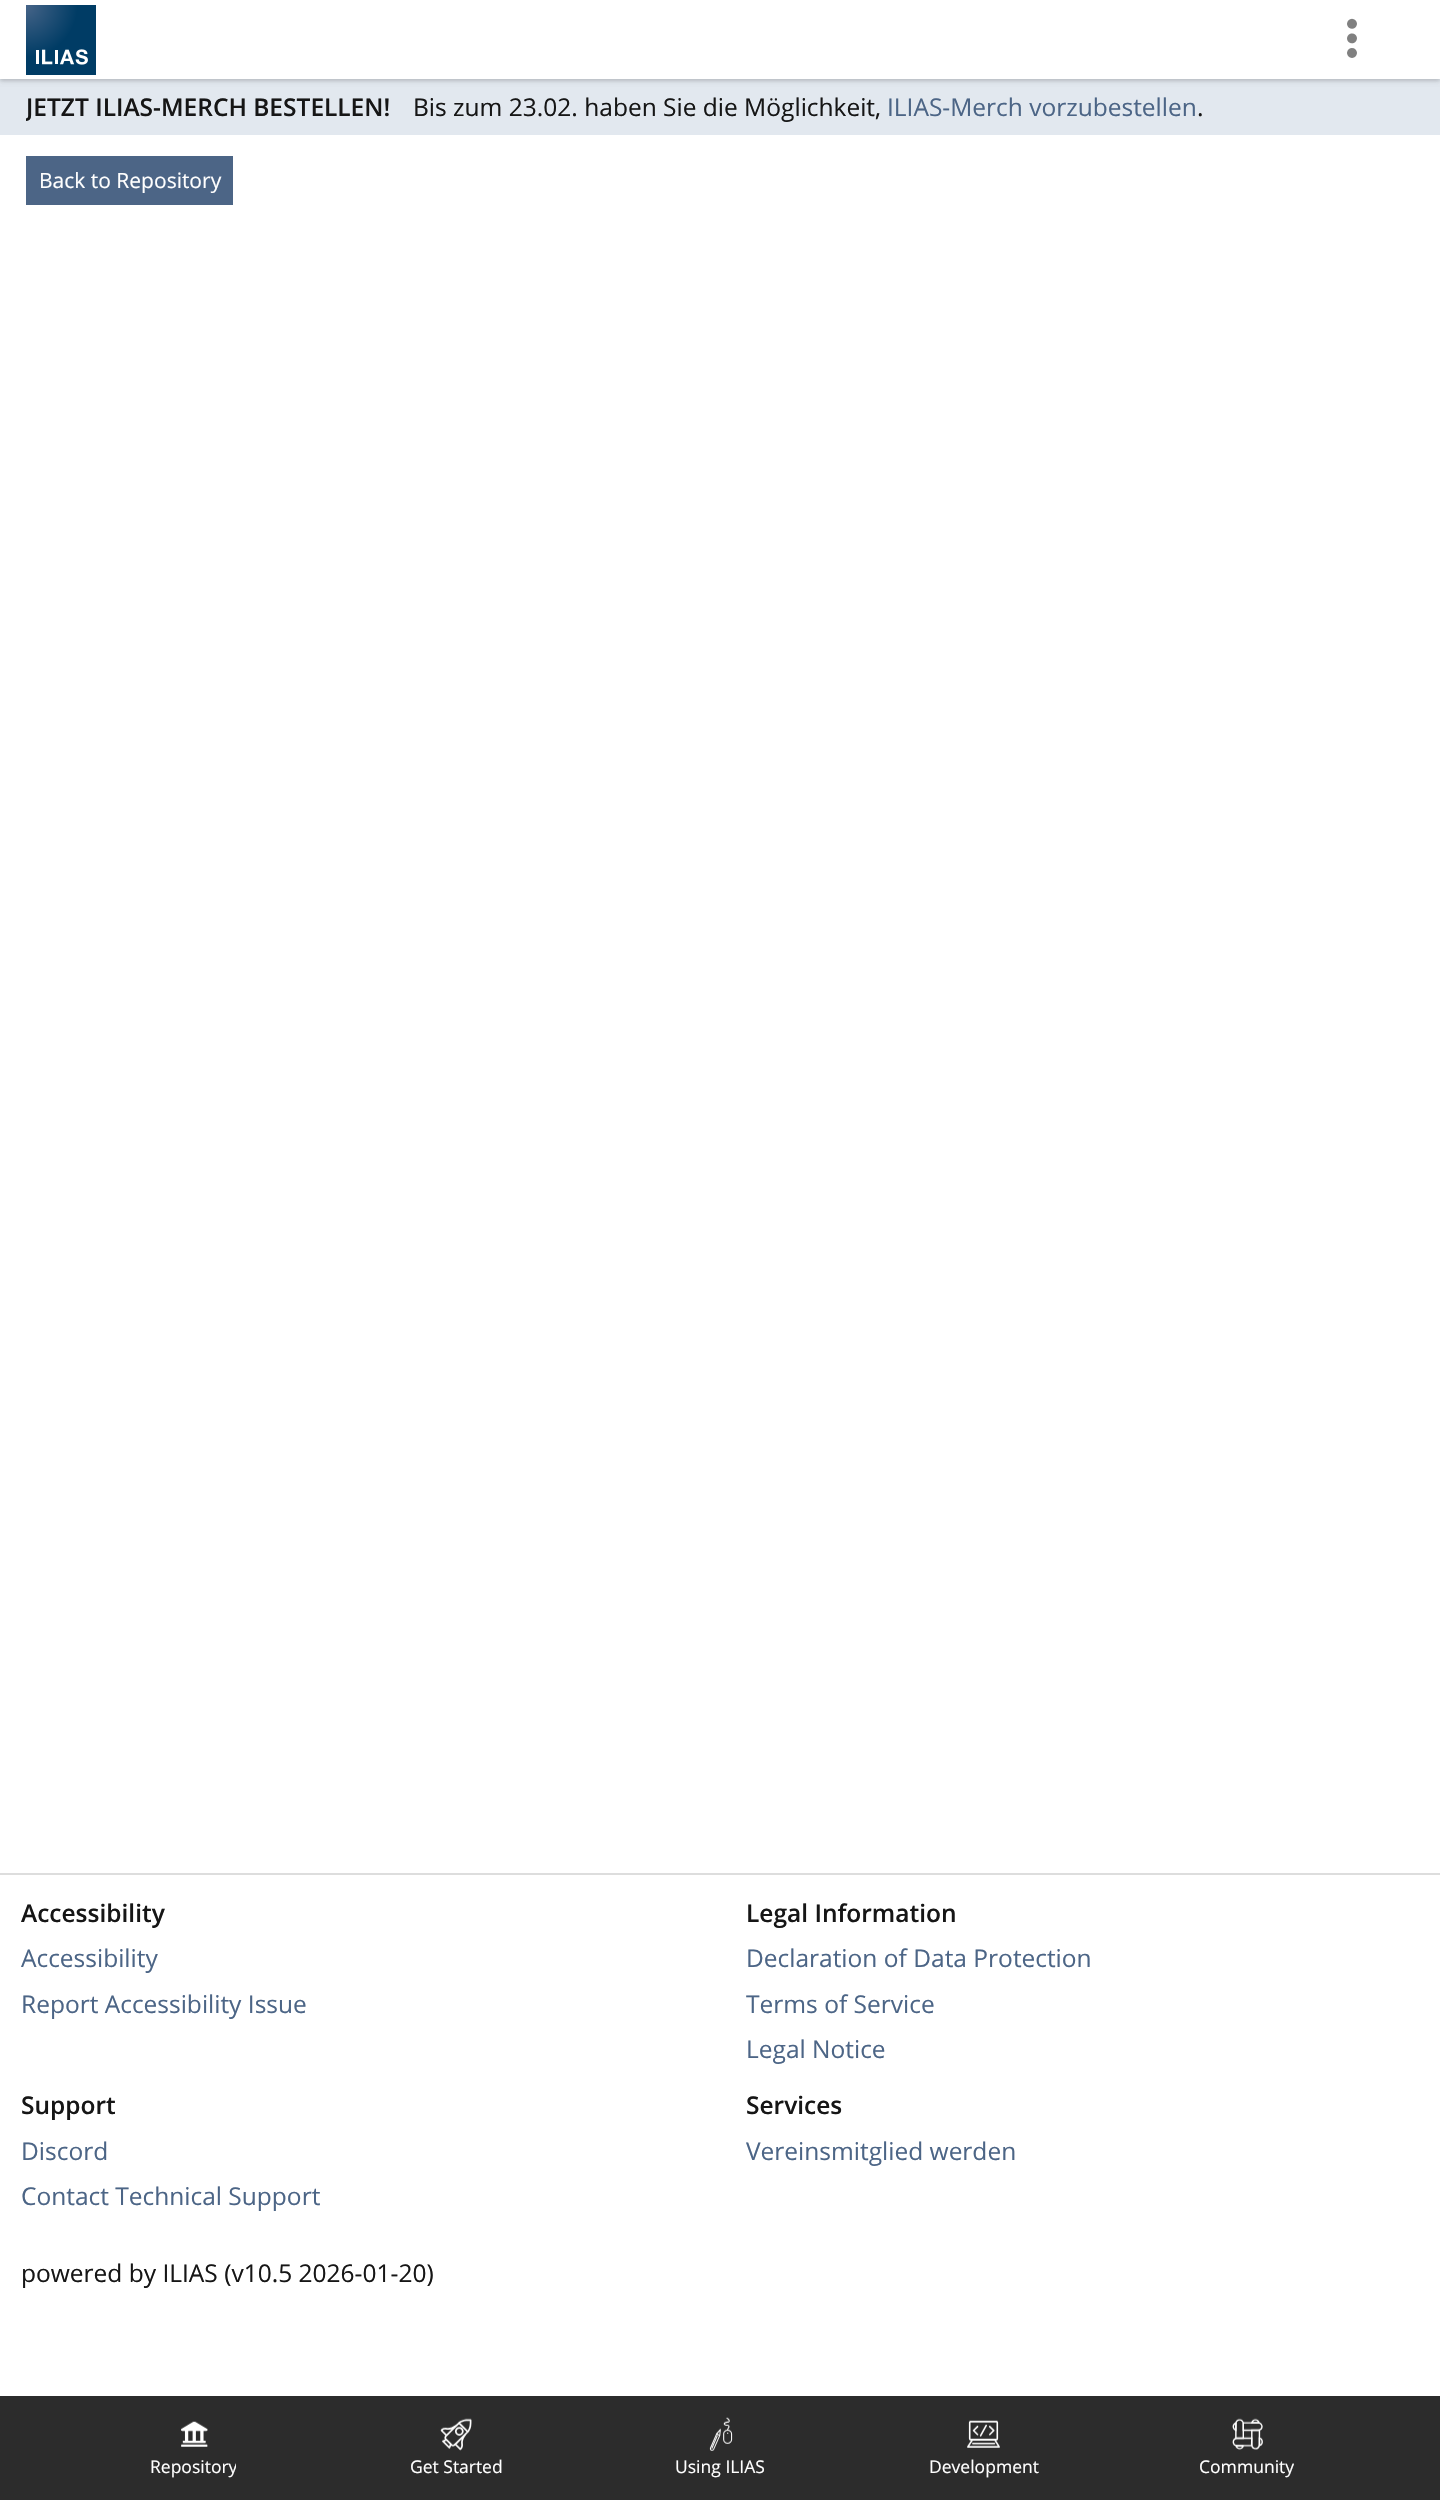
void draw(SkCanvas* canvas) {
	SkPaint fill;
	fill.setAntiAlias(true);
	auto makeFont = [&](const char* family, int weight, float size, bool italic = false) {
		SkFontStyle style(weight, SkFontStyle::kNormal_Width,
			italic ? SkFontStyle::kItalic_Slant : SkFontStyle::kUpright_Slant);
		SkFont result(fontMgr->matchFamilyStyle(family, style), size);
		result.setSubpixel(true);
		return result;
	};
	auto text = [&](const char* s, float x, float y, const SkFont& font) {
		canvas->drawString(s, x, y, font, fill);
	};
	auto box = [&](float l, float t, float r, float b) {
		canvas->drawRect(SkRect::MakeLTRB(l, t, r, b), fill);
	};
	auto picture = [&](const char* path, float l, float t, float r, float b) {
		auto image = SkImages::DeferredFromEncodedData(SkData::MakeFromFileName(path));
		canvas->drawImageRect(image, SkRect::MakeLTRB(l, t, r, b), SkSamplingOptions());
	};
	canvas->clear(0xFFFFFFFF);
	fill.setColor(0xFFE2E8EF);
	box(0, 79, 1440, 135);
	fill.setColor(0x1A000000);
	fill.setMaskFilter(SkMaskFilter::MakeBlur(kNormal_SkBlurStyle, 2));
	canvas->drawRect(SkRect::MakeLTRB(0, 2, 1440, 81), fill);
	fill.setMaskFilter(nullptr);
	fill.setMaskFilter(SkMaskFilter::MakeBlur(kNormal_SkBlurStyle, 2));
	canvas->drawRect(SkRect::MakeLTRB(0, 2, 1440, 81), fill);
	fill.setMaskFilter(nullptr);
	fill.setColor(0xFFFFFFFF);
	box(0, 0, 1440, 79);
	picture("image0.png", 26, 5, 96, 75);
	picture("image1.png", 1347, 18, 1357, 58);
	fill.setColor(0xFF4C6586);
	box(26, 156, 233, 205);
	fill.setColor(0xFFDDDDDD);
	box(0, 1873, 1440, 1875);
	fill.setColor(0xFF2C2C2C);
	box(0, 2396, 1440, 2500);
	picture("image2.png", 181, 2421, 208, 2447);
	picture("image3.png", 440, 2418, 472, 2451);
	picture("image4.png", 709, 2417, 733, 2451);
	picture("image5.png", 967, 2420, 1000, 2448);
	picture("image6.png", 1232, 2418, 1263, 2450);
	canvas->save();
	canvas->clipRect(SkRect::MakeLTRB(26, 89, 1309, 124));
	auto font1 = makeFont("Open Sans", 600, 24.5f);
	fill.setColor(0xFF161616);
	text("JETZT ILIAS-MERCH BESTELLEN!", 26, 116, font1);
	canvas->restore();
	auto font2 = makeFont("Open Sans", 400, 24.5f);
	text("Bis zum 23.02. haben Sie die Möglichkeit,", 413, 116, font2);
	fill.setColor(0xFF4C6586);
	text("ILIAS-Merch vorzubestellen", 887, 116, font2);
	fill.setColor(0xFF161616);
	text(".", 1197, 116, font2);
	auto font3 = makeFont("Open Sans", 400, 21);
	fill.setColor(0xFFFFFFFF);
	text("Back to Repository", 39, 188, font3);
	fill.setColor(0xFF161616);
	text("Accessibility", 21, 1922, font1);
	fill.setColor(0xFF4C6586);
	text("Accessibility", 21, 1967, font2);
	text("Report Accessibility Issue", 21, 2013, font2);
	fill.setColor(0xFF161616);
	text("Legal Information", 746, 1922, font1);
	fill.setColor(0xFF4C6586);
	text("Declaration of Data Protection", 746, 1967, font2);
	text("Terms of Service", 746, 2013, font2);
	text("Legal Notice", 746, 2058, font2);
	fill.setColor(0xFF161616);
	text("Support", 21, 2114, font1);
	fill.setColor(0xFF4C6586);
	text("Discord", 21, 2160, font2);
	text("Contact Technical Support", 21, 2205, font2);
	fill.setColor(0xFF161616);
	text("Services", 746, 2114, font1);
	fill.setColor(0xFF4C6586);
	text("Vereinsmitglied werden", 746, 2160, font2);
	fill.setColor(0xFF161616);
	text("powered by ILIAS (v10.5 2026-01-20)", 21, 2282, font2);
	canvas->save();
	canvas->clipRect(SkRect::MakeLTRB(151, 2454, 236, 2480));
	auto font4 = makeFont("Open Sans", 400, 17.5f);
	fill.setColor(0xFFFFFFFF);
	text("Repository", 150, 2473, font4);
	canvas->restore();
	text("Get Started", 410, 2473, font4);
	text("Using ILIAS", 675, 2473, font4);
	text("Development", 929, 2473, font4);
	text("Community", 1199, 2473, font4);
}
